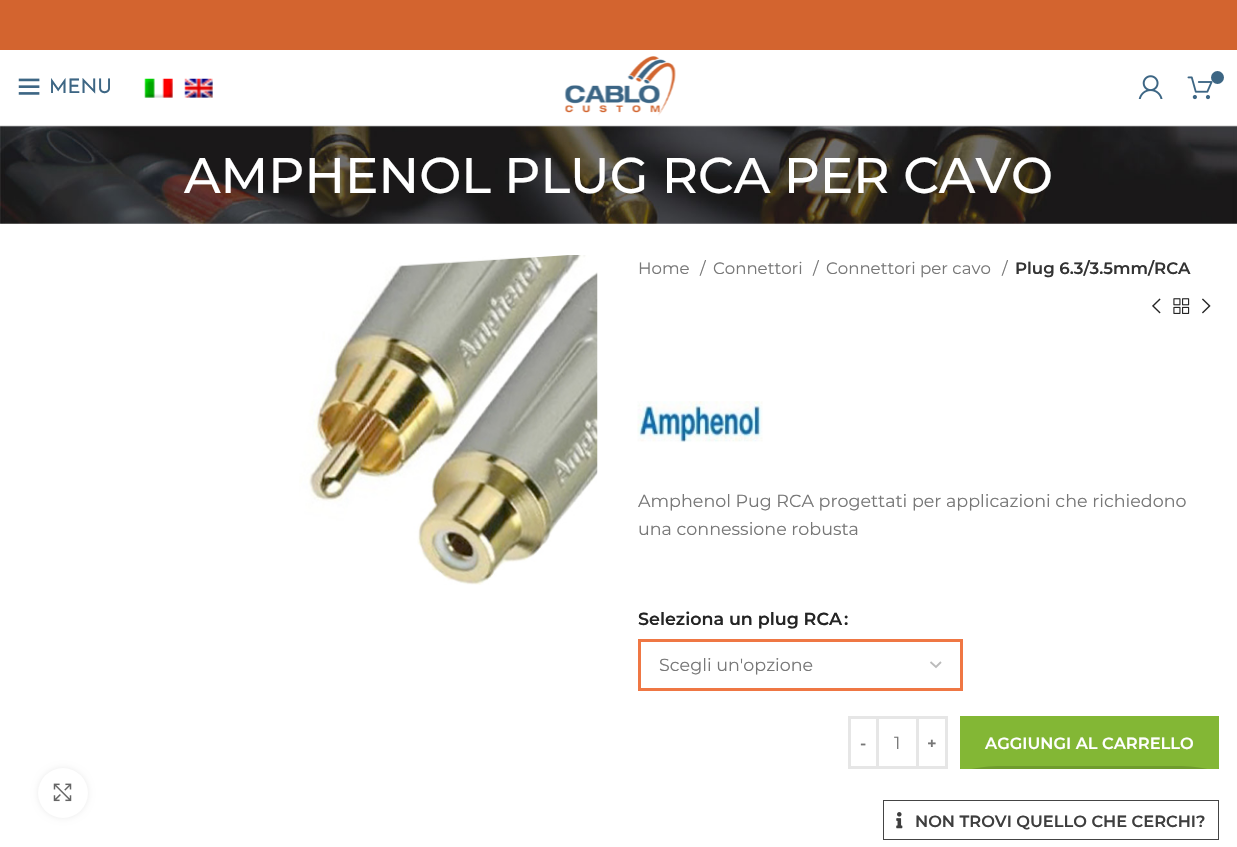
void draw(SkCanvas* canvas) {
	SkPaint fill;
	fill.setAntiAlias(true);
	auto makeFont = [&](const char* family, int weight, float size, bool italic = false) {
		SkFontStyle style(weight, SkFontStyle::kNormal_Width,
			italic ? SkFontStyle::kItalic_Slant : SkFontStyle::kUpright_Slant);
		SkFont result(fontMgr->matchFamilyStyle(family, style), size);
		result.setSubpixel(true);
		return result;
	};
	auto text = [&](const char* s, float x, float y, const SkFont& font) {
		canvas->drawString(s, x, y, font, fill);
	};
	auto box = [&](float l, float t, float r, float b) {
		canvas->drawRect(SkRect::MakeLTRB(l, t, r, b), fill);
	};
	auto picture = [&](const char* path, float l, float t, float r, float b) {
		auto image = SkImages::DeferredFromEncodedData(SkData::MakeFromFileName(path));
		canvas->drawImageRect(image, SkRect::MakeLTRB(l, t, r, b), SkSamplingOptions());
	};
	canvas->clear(0xFFFFFFFF);
	fill.setColor(0xFFD3642F);
	box(0, 0, 1237, 50);
	fill.setColor(0xFFE6E6E6);
	box(0, 125, 1237, 126);
	picture("image0.png", 18, 78, 40, 95);
	picture("image1.png", 144, 78, 173, 98);
	picture("image2.png", 184, 78, 213, 98);
	picture("image3.png", 564, 56, 676, 116);
	picture("image4.png", 1138, 75, 1163, 99);
	picture("image5.png", 1187, 76, 1213, 100);
	fill.setColor(0xFF3D6684);
	canvas->drawCircle(1217.5f, 77.5f, 6.5f, fill);
	picture("image6.png", 0, 126, 1237, 224);
	picture("image7.png", 299, 255, 598, 585);
	fill.setColor(0x14000000);
	fill.setMaskFilter(SkMaskFilter::MakeBlur(kNormal_SkBlurStyle, 3));
	canvas->drawRoundRect(SkRect::MakeLTRB(38, 768, 88, 818), 25, 25, fill);
	fill.setMaskFilter(nullptr);
	fill.setColor(0xFFFFFFFF);
	canvas->drawCircle(63, 793, 25, fill);
	picture("image8.png", 53, 783, 72, 802);
	picture("image9.png", 1152, 298, 1161, 314);
	picture("image10.png", 1173, 298, 1190, 314);
	picture("image11.png", 1202, 298, 1211, 314);
	picture("image12.png", 637, 401, 763, 443);
	fill.setStyle(SkPaint::kStroke_Style);
	fill.setStrokeWidth(1.8f);
	fill.setColor(0xFFBBBBBB);
	canvas->drawPath(SkPathBuilder().moveTo(930.5f, 662).lineTo(936, 667).lineTo(941, 662).detach(), fill);
	fill.setStrokeWidth(3);
	fill.setColor(0xFFEF7744);
	canvas->drawRect(SkRect::MakeLTRB(639.5f, 640.5f, 961.5f, 689.5f), fill);
	fill.setColor(0xFFE6E6E6);
	canvas->drawRect(SkRect::MakeLTRB(849.5f, 717.5f, 877.5f, 767.5f), fill);
	fill.setStyle(SkPaint::kFill_Style);
	box(879, 716, 916, 719);
	box(879, 766, 916, 769);
	fill.setStyle(SkPaint::kStroke_Style);
	canvas->drawRect(SkRect::MakeLTRB(917.5f, 717.5f, 946.5f, 767.5f), fill);
	fill.setStyle(SkPaint::kFill_Style);
	fill.setColor(0xFF83B735);
	box(960, 716, 1219, 769);
	canvas->save();
	canvas->clipRect(SkRect::MakeLTRB(960, 716, 1219, 769));
	fill.setColor(0xFF6F9C2D);
	canvas->drawPath(SkPathBuilder(SkPathFillType::kEvenOdd).moveTo(836, 592).lineTo(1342, 592).lineTo(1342, 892).lineTo(836, 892).close().moveTo(960, 714).lineTo(1176, 714).cubicTo(1225, 714, 1219, 700, 1219, 731).lineTo(1219, 757).cubicTo(1219, 781, 1222, 766, 1176, 766).lineTo(1003, 766).cubicTo(957, 766, 960, 781, 960, 757).close().detach(), fill);
	canvas->restore();
	fill.setStyle(SkPaint::kStroke_Style);
	fill.setStrokeWidth(1);
	fill.setColor(0xFF444444);
	canvas->drawRect(SkRect::MakeLTRB(883.5f, 800.5f, 1218.5f, 839.5f), fill);
	picture("image13.png", 896, 812, 903, 829);
	auto font1 = makeFont("Josefin Sans", 400, 20);
	fill.setStyle(SkPaint::kFill_Style);
	fill.setColor(0xFF3D6684);
	text("MENU", 49, 93, font1);
	auto font2 = makeFont("Montserrat", 500, 50);
	fill.setColor(0xFFFFFFFF);
	text("AMPHENOL PLUG RCA PER CAVO", 184, 193, font2);
	auto font3 = makeFont("Montserrat", 400, 16.6f);
	fill.setColor(0xFF777777);
	text("Home", 638, 274, font3);
	text("/", 700, 274, font3);
	text("Connettori", 713, 274, font3);
	text("/", 813, 274, font3);
	text("Connettori per cavo", 826, 274, font3);
	text("/", 1002, 274, font3);
	auto font4 = makeFont("Montserrat", 600, 16.6f);
	fill.setColor(0xFF333333);
	text("Plug 6.3/3.5mm/RCA", 1015, 274, font4);
	auto font5 = makeFont("Montserrat", 400, 17.5f);
	fill.setColor(0xFF777777);
	text("Amphenol Pug RCA progettati per applicazioni che richiedono", 638, 507, font5);
	text("una connessione robusta", 638, 535, font5);
	auto font6 = makeFont("Montserrat", 600, 17.5f);
	fill.setColor(0xFF242424);
	text("Seleziona un plug RCA", 638, 625, font6);
	text(":", 844, 625, font6);
	fill.setColor(0xFF777777);
	text("Scegli un'opzione", 659, 671, font5);
	auto font7 = makeFont("Montserrat", 600, 16.25f);
	text("-", 860, 749, font7);
	text("1", 894, 749, font5);
	text("+", 927, 749, font7);
	fill.setColor(0xFFFFFFFF);
	text("AGGIUNGI AL CARRELLO", 985, 749, font7);
	fill.setColor(0xFF3E3E3E);
	text("NON TROVI QUELLO CHE CERCHI?", 915, 827, font7);
}
